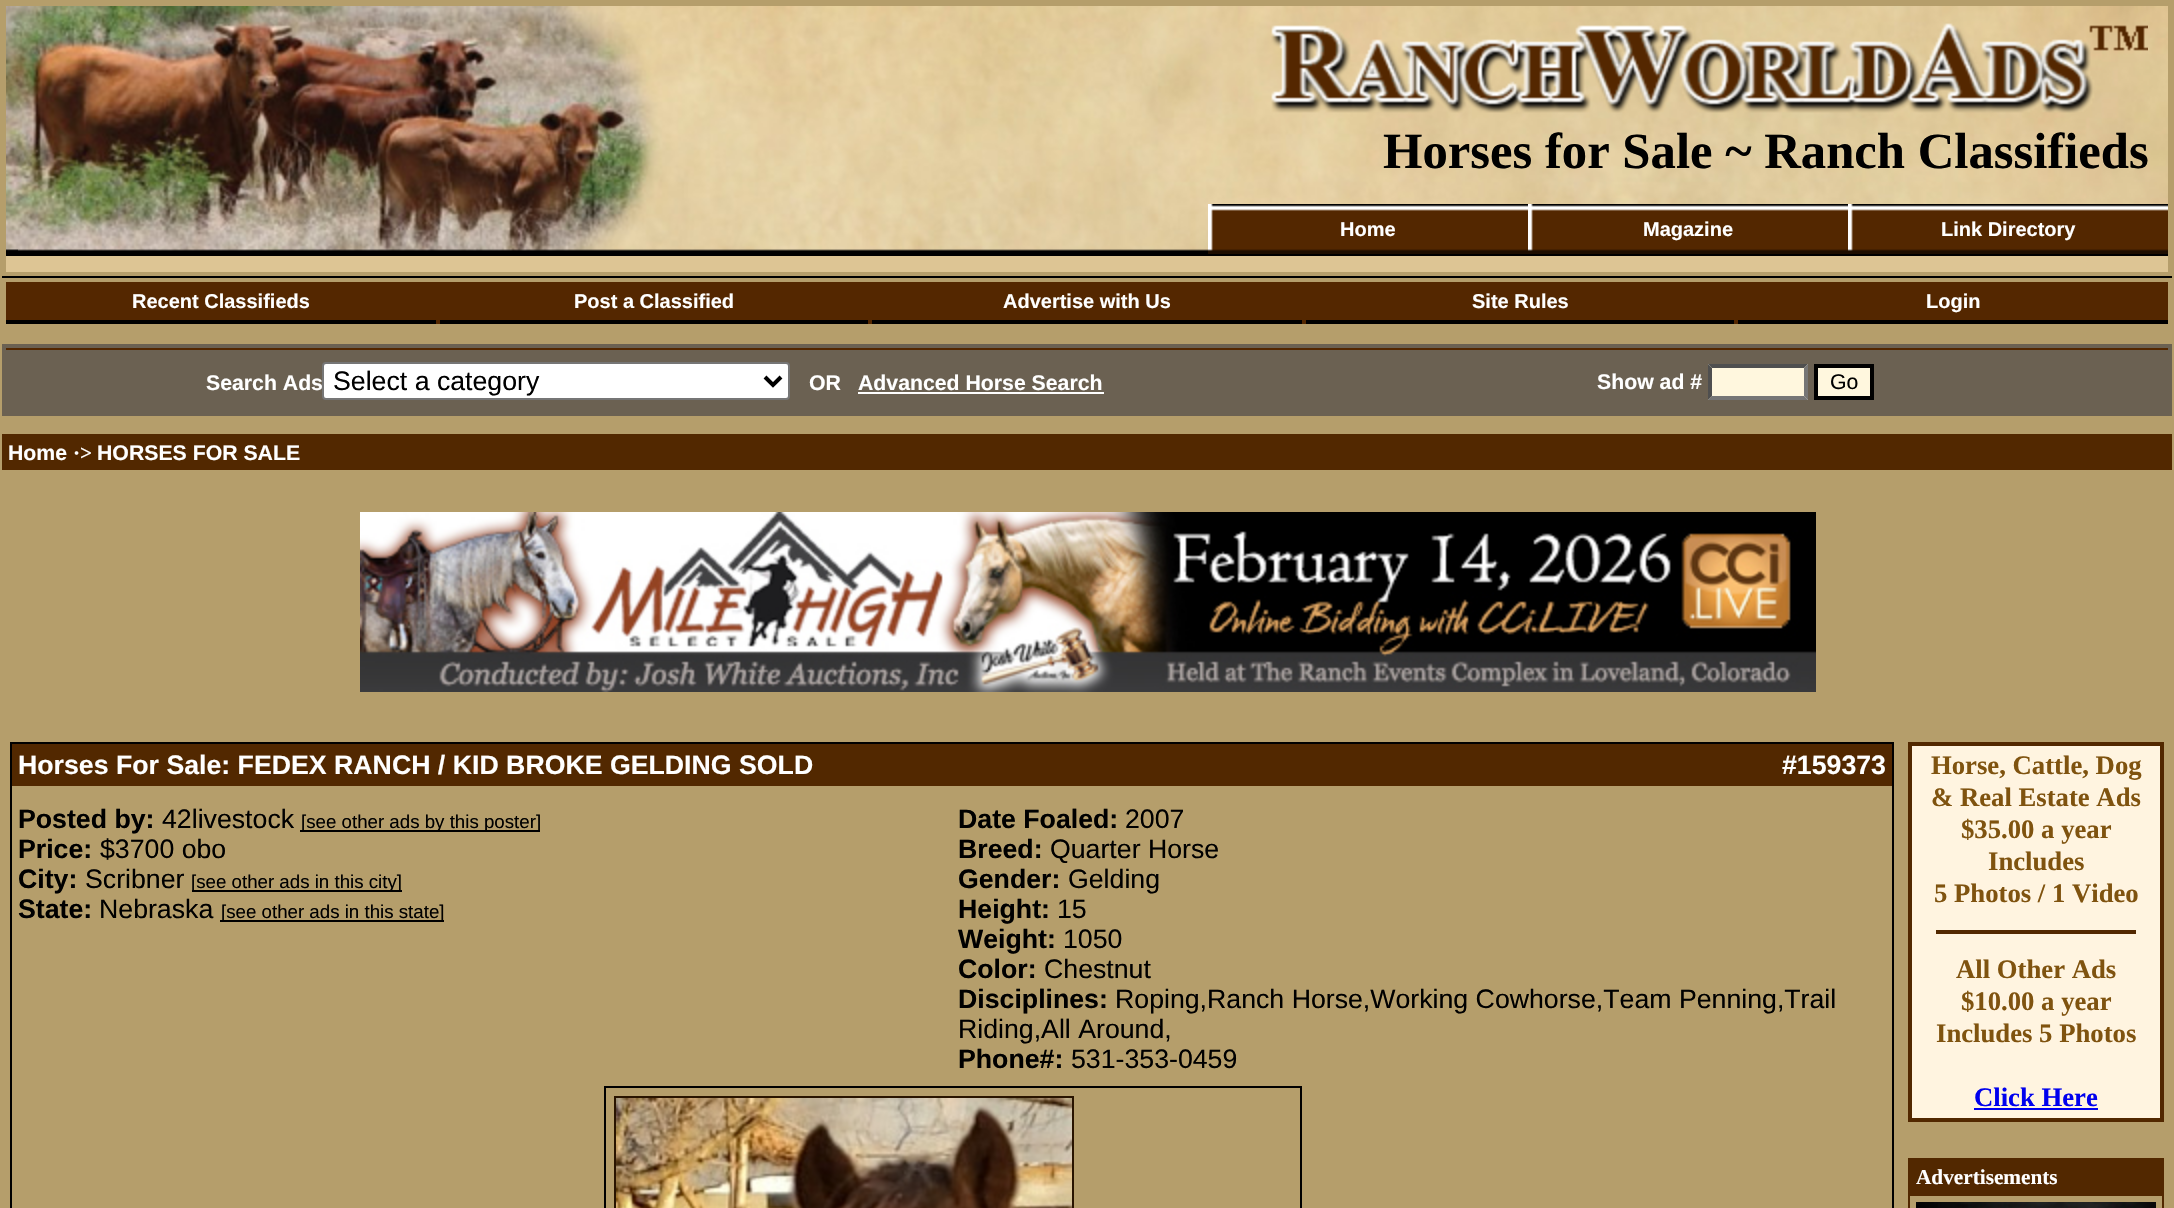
void draw(SkCanvas* canvas) {
	SkPaint fill;
	fill.setAntiAlias(true);
	auto makeFont = [&](const char* family, int weight, float size, bool italic = false) {
		SkFontStyle style(weight, SkFontStyle::kNormal_Width,
			italic ? SkFontStyle::kItalic_Slant : SkFontStyle::kUpright_Slant);
		SkFont result(fontMgr->matchFamilyStyle(family, style), size);
		result.setSubpixel(true);
		return result;
	};
	auto text = [&](const char* s, float x, float y, const SkFont& font) {
		canvas->drawString(s, x, y, font, fill);
	};
	auto box = [&](float l, float t, float r, float b) {
		canvas->drawRect(SkRect::MakeLTRB(l, t, r, b), fill);
	};
	auto picture = [&](const char* path, float l, float t, float r, float b) {
		auto image = SkImages::DeferredFromEncodedData(SkData::MakeFromFileName(path));
		canvas->drawImageRect(image, SkRect::MakeLTRB(l, t, r, b), SkSamplingOptions());
	};
	canvas->clear(0xFFB59E6B);
	fill.setColor(0xFFDDC594);
	box(6, 256, 2168, 272);
	picture("image0.png", 6, 6, 2168, 251);
	picture("image1.png", 1271, 23, 2148, 113);
	picture("image2.png", 1208, 204, 1528, 254);
	picture("image2.png", 1528, 204, 1848, 254);
	picture("image2.png", 1848, 204, 2168, 254);
	picture("image3.png", 6, 249, 1208, 254);
	picture("image4.png", 6, 249, 18, 251);
	fill.setColor(0xFF000000);
	box(6, 254, 2168, 256);
	box(2, 276, 2172, 278);
	fill.setColor(0xFF542700);
	box(6, 282, 2168, 324);
	fill.setColor(0xFF000000);
	box(6, 320, 436, 324);
	box(440, 320, 868, 324);
	box(872, 320, 1302, 324);
	box(1306, 320, 1734, 324);
	box(1738, 320, 2168, 324);
	fill.setColor(0xFF6B6152);
	box(2, 344, 2172, 416);
	fill.setColor(0xFF542700);
	box(6, 348, 2168, 350);
	fill.setColor(0xFFFFFFFF);
	canvas->drawRoundRect(SkRect::MakeLTRB(323, 363, 789, 399), 3, 3, fill);
	fill.setStyle(SkPaint::kStroke_Style);
	fill.setStrokeWidth(2);
	fill.setColor(0xFF767676);
	canvas->drawRoundRect(SkRect::MakeLTRB(323, 363, 789, 399), 3, 3, fill);
	fill.setStrokeWidth(4);
	fill.setColor(0xFF000000);
	canvas->drawPath(SkPathBuilder().moveTo(765, 377).lineTo(773, 385).lineTo(781, 377).detach(), fill);
	fill.setStyle(SkPaint::kFill_Style);
	fill.setColor(0xFFFFFFFF);
	box(858, 392, 1104, 394);
	fill.setColor(0xFFFFF7DE);
	box(1708, 364, 1808, 400);
	fill.setColor(0xFF4F4F4F);
	canvas->drawPath(SkPathBuilder().moveTo(1708, 364).lineTo(1808, 364).lineTo(1804, 368).lineTo(1712, 368).close().detach(), fill);
	fill.setColor(0xFF767676);
	canvas->drawPath(SkPathBuilder().moveTo(1808, 364).lineTo(1808, 400).lineTo(1804, 396).lineTo(1804, 368).close().detach(), fill);
	canvas->drawPath(SkPathBuilder().moveTo(1808, 400).lineTo(1708, 400).lineTo(1712, 396).lineTo(1804, 396).close().detach(), fill);
	fill.setColor(0xFF4F4F4F);
	canvas->drawPath(SkPathBuilder().moveTo(1708, 400).lineTo(1708, 364).lineTo(1712, 368).lineTo(1712, 396).close().detach(), fill);
	fill.setColor(0xFFFFF7DE);
	canvas->drawRect(SkRect::MakeLTRB(1816, 366, 1872, 398), fill);
	fill.setStyle(SkPaint::kStroke_Style);
	fill.setColor(0xFF000000);
	canvas->drawRect(SkRect::MakeLTRB(1816, 366, 1872, 398), fill);
	fill.setStyle(SkPaint::kFill_Style);
	fill.setColor(0xFF522800);
	box(2, 434, 2172, 470);
	picture("image5.png", 360, 512, 1816, 692);
	fill.setStyle(SkPaint::kStroke_Style);
	fill.setStrokeWidth(2);
	fill.setColor(0xFF000000);
	canvas->drawRect(SkRect::MakeLTRB(11, 743, 1893, 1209), fill);
	fill.setStyle(SkPaint::kFill_Style);
	fill.setColor(0xFF522800);
	box(12, 744, 1892, 786);
	fill.setColor(0xFF000000);
	box(300, 830, 540, 832);
	box(192, 890, 402, 892);
	box(220, 920, 444, 922);
	fill.setStyle(SkPaint::kStroke_Style);
	canvas->drawRect(SkRect::MakeLTRB(605, 1087, 1301, 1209), fill);
	fill.setColor(0xFF291400);
	canvas->drawRect(SkRect::MakeLTRB(615, 1097, 1073, 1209), fill);
	picture("image6.png", 616, 1098, 1072, 1208);
	fill.setStyle(SkPaint::kFill_Style);
	fill.setColor(0xFF522800);
	box(1908, 742, 2164, 1122);
	fill.setColor(0xFFFFF4E0);
	box(1912, 746, 2160, 1118);
	fill.setColor(0xFF522800);
	box(1936, 930, 2136, 934);
	fill.setColor(0xFF0000EE);
	box(1974, 1108, 2098, 1110);
	fill.setColor(0xFF522800);
	box(1908, 1158, 2164, 1208);
	fill.setColor(0xFFB59E6B);
	box(1910, 1196, 2162, 1208);
	picture("image7.png", 1916, 1202, 2156, 1208);
	auto font1 = makeFont("Liberation Serif", 700, 50.7f);
	fill.setColor(0xFF000000);
	text("Horses for Sale ~ Ranch Classifieds", 1383, 168, font1);
	auto font2 = makeFont("Liberation Sans", 700, 20);
	fill.setColor(0xFFFFFFFF);
	text("Home", 1340, 236, font2);
	text("Magazine", 1643, 236, font2);
	text("Link Directory", 1941, 236, font2);
	text("Recent Classifieds", 132, 308, font2);
	text("Post a Classified", 574, 308, font2);
	text("Advertise with Us", 1003, 308, font2);
	text("Site Rules", 1472, 308, font2);
	text("Login", 1926, 308, font2);
	auto font3 = makeFont("Liberation Sans", 700, 21.25f);
	text("Search Ads", 206, 390, font3);
	auto font4 = makeFont("Liberation Sans", 400, 26.7f);
	fill.setColor(0xFF000000);
	text("Select a category", 333, 390, font4);
	fill.setColor(0xFFFFFFFF);
	text("OR", 809, 390, font3);
	text("Advanced Horse Search", 858, 390, font3);
	text("Show ad #", 1597, 389, font3);
	auto font5 = makeFont("Liberation Sans", 400, 21.25f);
	fill.setColor(0xFF000000);
	text("Go", 1830, 389, font5);
	fill.setColor(0xFFFFFFFF);
	text("Home", 8, 460, font3);
	auto font6 = makeFont("Liberation Serif", 700, 21.25f);
	text("·>", 73, 460, font6);
	text("HORSES FOR SALE", 97, 460, font3);
	auto font7 = makeFont("Liberation Sans", 700, 26.7f);
	text("Horses For Sale: FEDEX RANCH / KID BROKE GELDING SOLD", 18, 774, font7);
	text("#159373", 1782, 774, font7);
	fill.setColor(0xFF000000);
	text("Posted by:", 18, 828, font7);
	text("42livestock", 162, 828, font4);
	auto font8 = makeFont("Liberation Sans", 400, 18.7f);
	text("[see other ads by this poster]", 301, 828, font8);
	text("Price:", 18, 858, font7);
	text("$3700 obo", 100, 858, font4);
	text("City:", 18, 888, font7);
	text("Scribner", 85, 888, font4);
	text("[see other ads in this city]", 191, 888, font8);
	text("State:", 18, 918, font7);
	text("Nebraska", 99, 918, font4);
	text("[see other ads in this state]", 221, 918, font8);
	text("Date Foaled:", 958, 828, font7);
	text("2007", 1125, 828, font4);
	text("Breed:", 958, 858, font7);
	text("Quarter Horse", 1050, 858, font4);
	text("Gender:", 958, 888, font7);
	text("Gelding", 1068, 888, font4);
	text("Height:", 958, 918, font7);
	text("15", 1057, 918, font4);
	text("Weight:", 958, 948, font7);
	text("1050", 1063, 948, font4);
	text("Color:", 958, 978, font7);
	text("Chestnut", 1044, 978, font4);
	text("Disciplines:", 958, 1008, font7);
	text("Roping,Ranch Horse,Working Cowhorse,Team Penning,Trail", 1115, 1008, font4);
	text("Riding,All Around,", 958, 1038, font4);
	text("Phone#:", 958, 1068, font7);
	text("531-353-0459", 1071, 1068, font4);
	auto font9 = makeFont("Liberation Serif", 700, 26.7f);
	fill.setColor(0xFF7F530F);
	text("Horse, Cattle, Dog", 1931, 774, font9);
	text("& Real Estate Ads", 1931, 806, font9);
	text("$35.00 a year", 1961, 838, font9);
	text("Includes", 1988, 870, font9);
	text("5 Photos / 1 Video", 1934, 902, font9);
	text("All Other Ads", 1956, 978, font9);
	text("$10.00 a year", 1961, 1010, font9);
	text("Includes 5 Photos", 1936, 1042, font9);
	fill.setColor(0xFF0000EE);
	text("Click Here", 1974, 1106, font9);
	fill.setColor(0xFFFFFFFF);
	text("Advertisements", 1916, 1184, font6);
}
